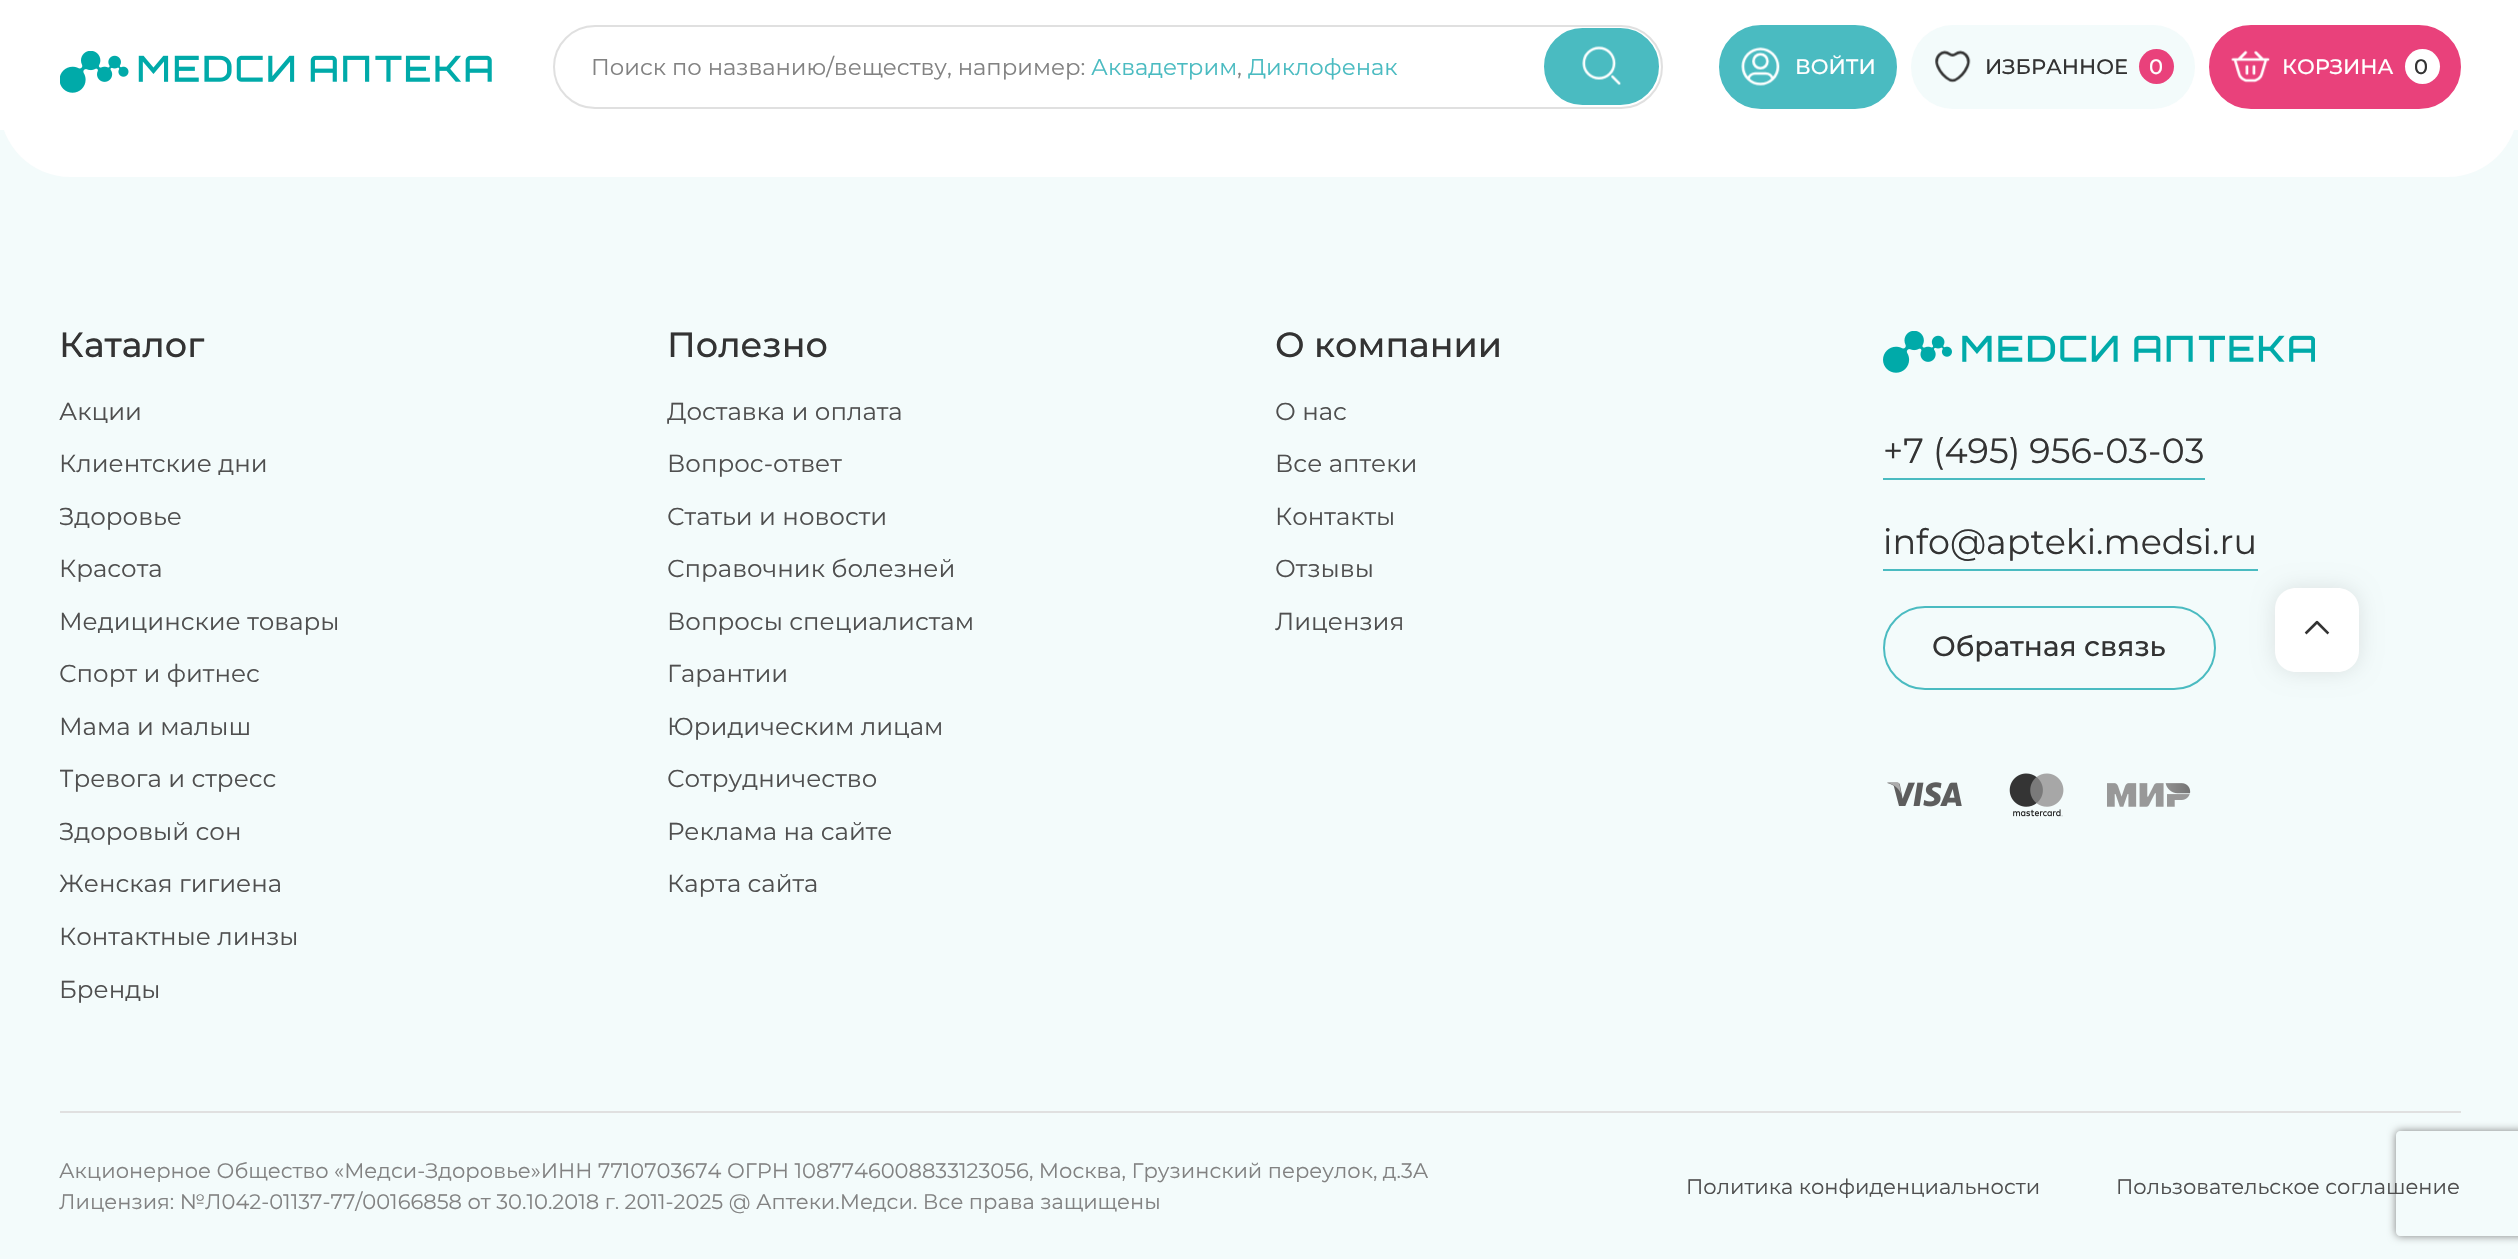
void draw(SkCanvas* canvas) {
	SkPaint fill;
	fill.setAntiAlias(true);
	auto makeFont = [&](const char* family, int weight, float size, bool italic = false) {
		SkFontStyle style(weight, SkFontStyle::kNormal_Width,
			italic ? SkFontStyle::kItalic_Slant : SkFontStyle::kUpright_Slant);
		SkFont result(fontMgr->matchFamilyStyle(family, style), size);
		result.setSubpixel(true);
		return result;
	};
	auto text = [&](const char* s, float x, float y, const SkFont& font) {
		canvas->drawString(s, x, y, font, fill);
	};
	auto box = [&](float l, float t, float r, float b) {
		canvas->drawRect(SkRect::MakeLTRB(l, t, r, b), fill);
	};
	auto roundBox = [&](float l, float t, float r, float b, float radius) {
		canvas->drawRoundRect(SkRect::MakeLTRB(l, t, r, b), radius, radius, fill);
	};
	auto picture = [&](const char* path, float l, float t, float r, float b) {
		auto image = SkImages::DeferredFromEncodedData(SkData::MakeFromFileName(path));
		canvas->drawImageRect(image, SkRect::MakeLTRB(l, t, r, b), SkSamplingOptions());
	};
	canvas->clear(0xFFF3FBFB);
	fill.setColor(0xFFFFFFFF);
	canvas->drawPath(SkPathBuilder().moveTo(0, 107).lineTo(2518, 107).cubicTo(2518, 145.5f, 2486.5f, 177, 2448, 177).lineTo(70, 177).cubicTo(31.5f, 177, 0, 145.5f, 0, 107).close().detach(), fill);
	box(0, 0, 2518, 130);
	picture("image0.png", 60, 51, 492, 93);
	fill.setStyle(SkPaint::kStroke_Style);
	fill.setStrokeWidth(2);
	fill.setColor(0xFFE0E0E0);
	canvas->drawRoundRect(SkRect::MakeLTRB(554, 26, 1662, 108), 41, 41, fill);
	fill.setStyle(SkPaint::kFill_Style);
	fill.setColor(0xFF4ABBC1);
	canvas->drawRoundRect(SkRect::MakeLTRB(1545, 29, 1658, 104), 37.5f, 37.5f, fill);
	fill.setStyle(SkPaint::kStroke_Style);
	canvas->drawRoundRect(SkRect::MakeLTRB(1545, 29, 1658, 104), 37.5f, 37.5f, fill);
	picture("image1.png", 1582, 46, 1621, 86);
	fill.setStyle(SkPaint::kFill_Style);
	canvas->drawRoundRect(SkRect::MakeLTRB(1720, 26, 1896, 108), 41, 41, fill);
	fill.setStyle(SkPaint::kStroke_Style);
	canvas->drawRoundRect(SkRect::MakeLTRB(1720, 26, 1896, 108), 41, 41, fill);
	picture("image2.png", 1741, 47, 1780, 86);
	fill.setStyle(SkPaint::kFill_Style);
	fill.setColor(0xFFF3FBFB);
	roundBox(1911, 25, 2195, 109, 42);
	picture("image3.png", 1935, 50, 1971, 83);
	fill.setColor(0xFFE9417B);
	canvas->drawCircle(2156.5f, 66.5f, 17.5f, fill);
	canvas->drawRoundRect(SkRect::MakeLTRB(2210, 26, 2460, 108), 41, 41, fill);
	fill.setStyle(SkPaint::kStroke_Style);
	canvas->drawRoundRect(SkRect::MakeLTRB(2210, 26, 2460, 108), 41, 41, fill);
	picture("image4.png", 2231, 50, 2270, 83);
	fill.setStyle(SkPaint::kFill_Style);
	fill.setColor(0xFFFFFFFF);
	canvas->drawCircle(2422.5f, 66.5f, 17.5f, fill);
	picture("image5.png", 1883, 331, 2315, 373);
	fill.setColor(0xFF4ABBC1);
	box(1883, 478, 2205, 480);
	box(1883, 569, 2258, 571);
	fill.setStyle(SkPaint::kStroke_Style);
	canvas->drawRoundRect(SkRect::MakeLTRB(1884, 607, 2215, 689), 41, 41, fill);
	picture("image6.png", 1887, 782, 1962, 807);
	picture("image7.png", 2009, 773, 2064, 817);
	picture("image8.png", 2107, 783, 2191, 807);
	fill.setStyle(SkPaint::kFill_Style);
	fill.setColor(0x1A000000);
	fill.setMaskFilter(SkMaskFilter::MakeBlur(kNormal_SkBlurStyle, 10.5f));
	canvas->drawRoundRect(SkRect::MakeLTRB(2275, 588, 2359, 672), 21, 21, fill);
	fill.setMaskFilter(nullptr);
	fill.setColor(0xFFFFFFFF);
	canvas->drawPath(SkPathBuilder().moveTo(2275, 651).lineTo(2275, 609).cubicTo(2275, 597, 2284, 588, 2296, 588).lineTo(2338, 588).cubicTo(2349, 588, 2359, 597, 2359, 609).lineTo(2359, 651).cubicTo(2359, 663, 2349, 672, 2338, 672).lineTo(2296, 672).cubicTo(2284, 672, 2275, 663, 2275, 651).close().detach(), fill);
	picture("image9.png", 2304, 620, 2330, 635);
	fill.setColor(0xFFE0E0E0);
	box(60, 1111, 2461, 1113);
	canvas->save();
	canvas->clipPath(SkPathBuilder(SkPathFillType::kEvenOdd).moveTo(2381, 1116).lineTo(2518, 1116).lineTo(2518, 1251).lineTo(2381, 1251).close().moveTo(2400, 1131).lineTo(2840, 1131).cubicTo(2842, 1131, 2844, 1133, 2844, 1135).lineTo(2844, 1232).cubicTo(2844, 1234, 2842, 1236, 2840, 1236).lineTo(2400, 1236).cubicTo(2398, 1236, 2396, 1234, 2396, 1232).lineTo(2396, 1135).cubicTo(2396, 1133, 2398, 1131, 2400, 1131).close().detach(), true);
	fill.setColor(0xFF808080);
	fill.setMaskFilter(SkMaskFilter::MakeBlur(kNormal_SkBlurStyle, 4.5f));
	canvas->drawRoundRect(SkRect::MakeLTRB(2396, 1131, 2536, 1236), 4, 4, fill);
	fill.setMaskFilter(nullptr);
	canvas->restore();
	auto font1 = makeFont("Montserrat", 400, 22.75f);
	fill.setColor(0xFF828282);
	text("Поиск по названию/веществу, например:", 591, 75, font1);
	fill.setColor(0xFF4ABBC1);
	text("Аквадетрим", 1091, 75, font1);
	fill.setColor(0xFF828282);
	text(",", 1237, 75, font1);
	fill.setColor(0xFF4ABBC1);
	text("Диклофенак", 1248, 75, font1);
	auto font2 = makeFont("Montserrat", 500, 21);
	fill.setColor(0xFFFFFFFF);
	text("ВОЙТИ", 1795, 74, font2);
	fill.setColor(0xFF333333);
	text("ИЗБРАННОЕ", 1985, 74, font2);
	fill.setColor(0xFFFFFFFF);
	text("0", 2149, 74, font2);
	text("КОРЗИНА", 2282, 74, font2);
	fill.setColor(0xFF333333);
	text("0", 2414, 74, font2);
	auto font3 = makeFont("Montserrat", 500, 35);
	text("Каталог", 59, 357, font3);
	auto font4 = makeFont("Montserrat", 400, 24.5f);
	fill.setColor(0xFF4F4F4F);
	text("Акции", 59, 420, font4);
	text("Клиентские дни", 59, 472, font4);
	canvas->save();
	canvas->clipRect(SkRect::MakeLTRB(60, 394, 480, 1041));
	text("Здоровье", 59, 525, font4);
	canvas->restore();
	text("Красота", 59, 577, font4);
	text("Медицинские товары", 59, 630, font4);
	text("Спорт и фитнес", 59, 682, font4);
	text("Мама и малыш", 59, 735, font4);
	canvas->save();
	canvas->clipRect(SkRect::MakeLTRB(60, 394, 480, 1041));
	text("Тревога и стресс", 59, 787, font4);
	text("Здоровый сон", 59, 840, font4);
	canvas->restore();
	text("Женская гигиена", 59, 892, font4);
	text("Контактные линзы", 59, 945, font4);
	text("Бренды", 59, 998, font4);
	fill.setColor(0xFF333333);
	text("Полезно", 667, 357, font3);
	fill.setColor(0xFF4F4F4F);
	text("Доставка и оплата", 667, 420, font4);
	text("Вопрос-ответ", 667, 472, font4);
	text("Статьи и новости", 667, 525, font4);
	text("Справочник болезней", 667, 577, font4);
	text("Вопросы специалистам", 667, 630, font4);
	text("Гарантии", 667, 682, font4);
	text("Юридическим лицам", 667, 735, font4);
	text("Сотрудничество", 667, 787, font4);
	text("Реклама на сайте", 667, 840, font4);
	text("Карта сайта", 667, 892, font4);
	fill.setColor(0xFF333333);
	text("О компании", 1275, 357, font3);
	fill.setColor(0xFF4F4F4F);
	text("О нас", 1275, 420, font4);
	text("Все аптеки", 1275, 472, font4);
	text("Контакты", 1275, 525, font4);
	text("Отзывы", 1275, 577, font4);
	text("Лицензия", 1275, 630, font4);
	auto font5 = makeFont("Montserrat", 400, 35);
	fill.setColor(0xFF333333);
	text("+7 (495) 956-03-03", 1883, 463, font5);
	text("info@apteki.medsi.ru", 1883, 554, font5);
	auto font6 = makeFont("Montserrat", 500, 28);
	text("Обратная связь", 1932, 656, font6);
	auto font7 = makeFont("Montserrat", 400, 21);
	fill.setColor(0xFF828282);
	text("Акционерное Общество «Медси-Здоровье»ИНН 7710703674 ОГРН 1087746008833123056, Москва, Грузинский переулок, д.3А", 59, 1178, font7);
	text("Лицензия: №Л042-01137-77/00166858 от 30.10.2018 г. 2011-2025 @ Аптеки.Медси. Все права защищены", 59, 1209, font7);
	fill.setColor(0xFF4F4F4F);
	text("Политика конфиденциальности", 1686, 1194, font7);
	text("Пользовательское соглашение", 2116, 1194, font7);
}
